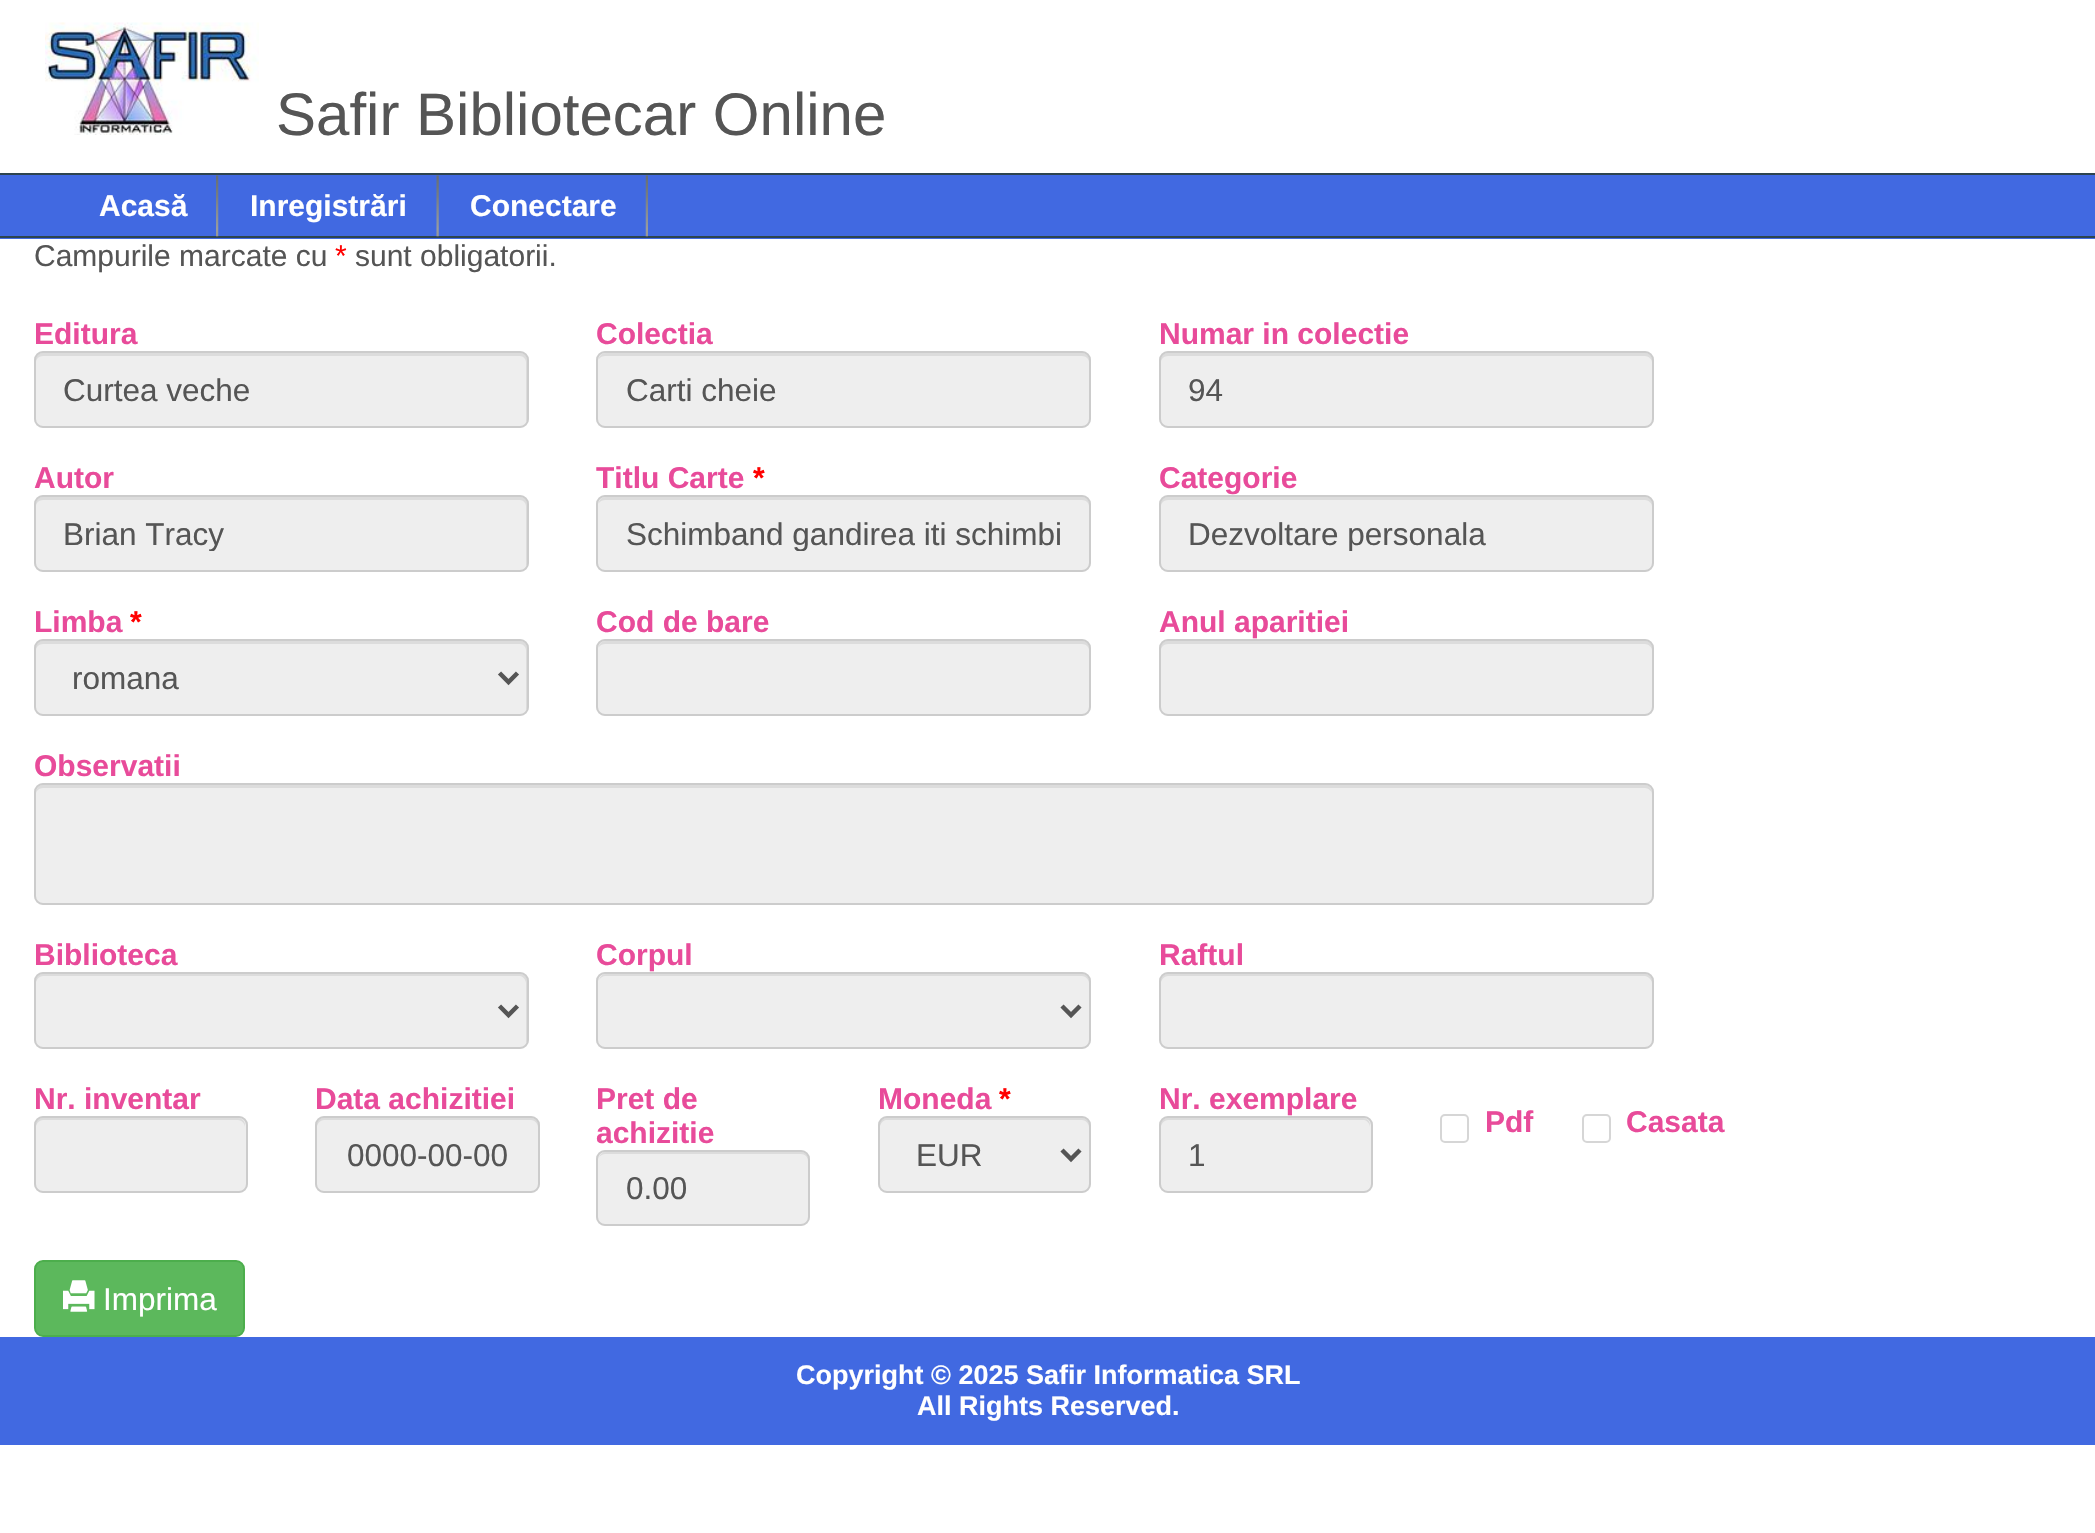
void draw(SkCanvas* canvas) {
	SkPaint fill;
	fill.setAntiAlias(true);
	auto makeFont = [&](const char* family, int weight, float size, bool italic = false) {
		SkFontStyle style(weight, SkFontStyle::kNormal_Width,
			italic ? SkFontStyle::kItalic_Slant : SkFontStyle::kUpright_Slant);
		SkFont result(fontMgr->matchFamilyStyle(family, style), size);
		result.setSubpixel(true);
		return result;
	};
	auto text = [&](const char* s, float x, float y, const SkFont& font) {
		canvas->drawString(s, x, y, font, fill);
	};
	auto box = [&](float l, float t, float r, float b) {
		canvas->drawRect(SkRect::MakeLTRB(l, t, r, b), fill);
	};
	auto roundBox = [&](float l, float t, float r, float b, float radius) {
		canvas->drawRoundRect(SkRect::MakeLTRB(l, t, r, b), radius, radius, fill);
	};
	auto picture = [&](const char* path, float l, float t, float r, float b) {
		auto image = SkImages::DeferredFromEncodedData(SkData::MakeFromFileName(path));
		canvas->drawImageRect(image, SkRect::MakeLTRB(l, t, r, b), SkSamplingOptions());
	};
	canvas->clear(0xFFFFFFFF);
	picture("image0.png", 45, 22, 259, 135);
	fill.setColor(0xFF4169E1);
	box(0, 175, 2095, 239);
	fill.setColor(0xFF2D444F);
	box(0, 173, 2095, 175);
	box(0, 236, 2095, 238);
	picture("image1.png", 216, 175, 219, 237);
	picture("image2.png", 436, 175, 439, 237);
	picture("image3.png", 645, 175, 648, 237);
	fill.setColor(0xFFEEEEEE);
	roundBox(34, 351, 529, 428, 9);
	fill.setColor(0xFFDCDCDC);
	canvas->drawPath(SkPathBuilder().moveTo(43, 356).lineTo(520, 356).cubicTo(523, 356, 526, 359, 526, 362).lineTo(526, 422).cubicTo(527, 421, 527, 419, 527, 418).lineTo(527, 360).cubicTo(527, 356, 524, 353, 520, 353).lineTo(43, 353).cubicTo(39, 353, 36, 356, 36, 360).lineTo(36, 362).cubicTo(36, 359, 39, 356, 43, 356).close().detach(), fill);
	fill.setStyle(SkPaint::kStroke_Style);
	fill.setStrokeWidth(2);
	fill.setColor(0xFFCCCCCC);
	canvas->drawRoundRect(SkRect::MakeLTRB(35, 352, 528, 427), 8, 8, fill);
	fill.setStyle(SkPaint::kFill_Style);
	fill.setColor(0xFFEEEEEE);
	roundBox(596, 351, 1091, 428, 9);
	fill.setColor(0xFFDCDCDC);
	canvas->drawPath(SkPathBuilder().moveTo(605, 356).lineTo(1082, 356).cubicTo(1086, 356, 1089, 359, 1089, 362).lineTo(1089, 360).cubicTo(1089, 356, 1086, 353, 1082, 353).lineTo(606, 353).cubicTo(602, 353, 599, 356, 599, 359).cubicTo(600, 357, 603, 356, 605, 356).close().detach(), fill);
	fill.setStyle(SkPaint::kStroke_Style);
	fill.setColor(0xFFCCCCCC);
	canvas->drawRoundRect(SkRect::MakeLTRB(597, 352, 1090, 427), 8, 8, fill);
	fill.setStyle(SkPaint::kFill_Style);
	fill.setColor(0xFFEEEEEE);
	roundBox(1159, 351, 1654, 428, 9);
	fill.setColor(0xFFDCDCDC);
	canvas->drawPath(SkPathBuilder().moveTo(1168, 356).lineTo(1645, 356).cubicTo(1648, 356, 1652, 359, 1652, 362).lineTo(1652, 360).cubicTo(1652, 356, 1649, 353, 1645, 353).lineTo(1168, 353).cubicTo(1164, 353, 1161, 356, 1161, 360).lineTo(1161, 362).cubicTo(1161, 359, 1164, 356, 1168, 356).close().detach(), fill);
	fill.setStyle(SkPaint::kStroke_Style);
	fill.setColor(0xFFCCCCCC);
	canvas->drawRoundRect(SkRect::MakeLTRB(1160, 352, 1653, 427), 8, 8, fill);
	fill.setStyle(SkPaint::kFill_Style);
	fill.setColor(0xFFEEEEEE);
	roundBox(34, 495, 529, 572, 9);
	fill.setColor(0xFFDCDCDC);
	canvas->drawPath(SkPathBuilder().moveTo(43, 500).lineTo(520, 500).cubicTo(523, 500, 526, 503, 526, 506).lineTo(526, 566).cubicTo(527, 565, 527, 563, 527, 562).lineTo(527, 504).cubicTo(527, 500, 524, 497, 520, 497).lineTo(43, 497).cubicTo(39, 497, 36, 500, 36, 504).lineTo(36, 506).cubicTo(36, 503, 39, 500, 43, 500).close().detach(), fill);
	fill.setStyle(SkPaint::kStroke_Style);
	fill.setColor(0xFFCCCCCC);
	canvas->drawRoundRect(SkRect::MakeLTRB(35, 496, 528, 571), 8, 8, fill);
	fill.setStyle(SkPaint::kFill_Style);
	fill.setColor(0xFFEEEEEE);
	roundBox(596, 495, 1091, 572, 9);
	fill.setColor(0xFFDCDCDC);
	canvas->drawPath(SkPathBuilder().moveTo(605, 500).lineTo(1082, 500).cubicTo(1086, 500, 1089, 503, 1089, 506).lineTo(1089, 504).cubicTo(1089, 500, 1086, 497, 1082, 497).lineTo(606, 497).cubicTo(602, 497, 599, 500, 599, 503).cubicTo(600, 501, 603, 500, 605, 500).close().detach(), fill);
	fill.setStyle(SkPaint::kStroke_Style);
	fill.setColor(0xFFCCCCCC);
	canvas->drawRoundRect(SkRect::MakeLTRB(597, 496, 1090, 571), 8, 8, fill);
	fill.setStyle(SkPaint::kFill_Style);
	fill.setColor(0xFFEEEEEE);
	roundBox(1159, 495, 1654, 572, 9);
	fill.setColor(0xFFDCDCDC);
	canvas->drawPath(SkPathBuilder().moveTo(1168, 500).lineTo(1645, 500).cubicTo(1648, 500, 1652, 503, 1652, 506).lineTo(1652, 504).cubicTo(1652, 500, 1649, 497, 1645, 497).lineTo(1168, 497).cubicTo(1164, 497, 1161, 500, 1161, 504).lineTo(1161, 506).cubicTo(1161, 503, 1164, 500, 1168, 500).close().detach(), fill);
	fill.setStyle(SkPaint::kStroke_Style);
	fill.setColor(0xFFCCCCCC);
	canvas->drawRoundRect(SkRect::MakeLTRB(1160, 496, 1653, 571), 8, 8, fill);
	fill.setStyle(SkPaint::kFill_Style);
	fill.setColor(0xFFEEEEEE);
	roundBox(34, 639, 529, 716, 9);
	fill.setColor(0xFFDCDCDC);
	canvas->drawPath(SkPathBuilder().moveTo(43, 644).lineTo(520, 644).cubicTo(523, 644, 526, 647, 526, 650).lineTo(526, 710).cubicTo(527, 709, 527, 707, 527, 706).lineTo(527, 648).cubicTo(527, 644, 524, 641, 520, 641).lineTo(43, 641).cubicTo(39, 641, 36, 644, 36, 648).lineTo(36, 650).cubicTo(36, 647, 39, 644, 43, 644).close().detach(), fill);
	fill.setStyle(SkPaint::kStroke_Style);
	fill.setColor(0xFFCCCCCC);
	canvas->drawRoundRect(SkRect::MakeLTRB(35, 640, 528, 715), 8, 8, fill);
	fill.setStrokeWidth(4.5f);
	fill.setColor(0xFF555555);
	canvas->drawPath(SkPathBuilder().moveTo(499.5f, 673).lineTo(508.5f, 682).lineTo(517.5f, 673).detach(), fill);
	fill.setStyle(SkPaint::kFill_Style);
	fill.setColor(0xFFEEEEEE);
	roundBox(596, 639, 1091, 716, 9);
	fill.setColor(0xFFDCDCDC);
	canvas->drawPath(SkPathBuilder().moveTo(605, 644).lineTo(1082, 644).cubicTo(1086, 644, 1089, 647, 1089, 650).lineTo(1089, 648).cubicTo(1089, 644, 1086, 641, 1082, 641).lineTo(606, 641).cubicTo(602, 641, 599, 644, 599, 647).cubicTo(600, 645, 603, 644, 605, 644).close().detach(), fill);
	fill.setStyle(SkPaint::kStroke_Style);
	fill.setStrokeWidth(2);
	fill.setColor(0xFFCCCCCC);
	canvas->drawRoundRect(SkRect::MakeLTRB(597, 640, 1090, 715), 8, 8, fill);
	fill.setStyle(SkPaint::kFill_Style);
	fill.setColor(0xFFEEEEEE);
	roundBox(1159, 639, 1654, 716, 9);
	fill.setColor(0xFFDCDCDC);
	canvas->drawPath(SkPathBuilder().moveTo(1168, 644).lineTo(1645, 644).cubicTo(1648, 644, 1652, 647, 1652, 650).lineTo(1652, 648).cubicTo(1652, 644, 1649, 641, 1645, 641).lineTo(1168, 641).cubicTo(1164, 641, 1161, 644, 1161, 648).lineTo(1161, 650).cubicTo(1161, 647, 1164, 644, 1168, 644).close().detach(), fill);
	fill.setStyle(SkPaint::kStroke_Style);
	fill.setColor(0xFFCCCCCC);
	canvas->drawRoundRect(SkRect::MakeLTRB(1160, 640, 1653, 715), 8, 8, fill);
	fill.setStyle(SkPaint::kFill_Style);
	fill.setColor(0xFFEEEEEE);
	roundBox(34, 783, 1654, 905, 9);
	fill.setColor(0xFFDCDCDC);
	canvas->drawPath(SkPathBuilder().moveTo(43, 788).lineTo(1645, 788).cubicTo(1648, 788, 1652, 791, 1652, 794).cubicTo(1652, 790, 1650, 785, 1645, 785).lineTo(43, 785).cubicTo(38, 785, 36, 790, 36, 794).cubicTo(36, 791, 39, 788, 43, 788).close().detach(), fill);
	fill.setStyle(SkPaint::kStroke_Style);
	fill.setColor(0xFFCCCCCC);
	canvas->drawRoundRect(SkRect::MakeLTRB(35, 784, 1653, 904), 8, 8, fill);
	fill.setStyle(SkPaint::kFill_Style);
	fill.setColor(0xFFEEEEEE);
	roundBox(34, 972, 529, 1049, 9);
	fill.setColor(0xFFDCDCDC);
	canvas->drawPath(SkPathBuilder().moveTo(43, 976).lineTo(520, 976).cubicTo(523, 976, 526, 980, 526, 983).lineTo(526, 1043).cubicTo(527, 1042, 527, 1040, 527, 1039).lineTo(527, 981).cubicTo(527, 977, 524, 974, 520, 974).lineTo(43, 974).cubicTo(39, 974, 36, 977, 36, 981).lineTo(36, 983).cubicTo(36, 980, 39, 976, 43, 976).close().detach(), fill);
	fill.setStyle(SkPaint::kStroke_Style);
	fill.setColor(0xFFCCCCCC);
	canvas->drawRoundRect(SkRect::MakeLTRB(35, 973, 528, 1048), 8, 8, fill);
	fill.setStrokeWidth(4.5f);
	fill.setColor(0xFF555555);
	canvas->drawPath(SkPathBuilder().moveTo(499.5f, 1006).lineTo(508.5f, 1015).lineTo(517.5f, 1006).detach(), fill);
	fill.setStyle(SkPaint::kFill_Style);
	fill.setColor(0xFFEEEEEE);
	roundBox(596, 972, 1091, 1049, 9);
	fill.setColor(0xFFDCDCDC);
	canvas->drawPath(SkPathBuilder().moveTo(605, 976).lineTo(1082, 976).cubicTo(1086, 976, 1089, 980, 1089, 983).lineTo(1089, 981).cubicTo(1089, 977, 1086, 974, 1082, 974).lineTo(606, 974).cubicTo(602, 974, 600, 977, 599, 980).cubicTo(600, 978, 603, 976, 605, 976).close().detach(), fill);
	fill.setStyle(SkPaint::kStroke_Style);
	fill.setStrokeWidth(2);
	fill.setColor(0xFFCCCCCC);
	canvas->drawRoundRect(SkRect::MakeLTRB(597, 973, 1090, 1048), 8, 8, fill);
	fill.setStrokeWidth(4.5f);
	fill.setColor(0xFF555555);
	canvas->drawPath(SkPathBuilder().moveTo(1062, 1006).lineTo(1071, 1015).lineTo(1080, 1006).detach(), fill);
	fill.setStyle(SkPaint::kFill_Style);
	fill.setColor(0xFFEEEEEE);
	roundBox(1159, 972, 1654, 1049, 9);
	fill.setColor(0xFFDCDCDC);
	canvas->drawPath(SkPathBuilder().moveTo(1168, 976).lineTo(1645, 976).cubicTo(1648, 976, 1652, 980, 1652, 983).lineTo(1652, 981).cubicTo(1652, 977, 1649, 974, 1645, 974).lineTo(1168, 974).cubicTo(1164, 974, 1161, 977, 1161, 981).lineTo(1161, 983).cubicTo(1161, 980, 1164, 976, 1168, 976).close().detach(), fill);
	fill.setStyle(SkPaint::kStroke_Style);
	fill.setStrokeWidth(2);
	fill.setColor(0xFFCCCCCC);
	canvas->drawRoundRect(SkRect::MakeLTRB(1160, 973, 1653, 1048), 8, 8, fill);
	fill.setStyle(SkPaint::kFill_Style);
	fill.setColor(0xFFEEEEEE);
	roundBox(34, 1116, 248, 1193, 9);
	fill.setColor(0xFFDCDCDC);
	canvas->drawPath(SkPathBuilder().moveTo(43, 1120).lineTo(238, 1120).cubicTo(242, 1120, 245, 1124, 245, 1127).lineTo(245, 1125).cubicTo(245, 1121, 242, 1118, 238, 1118).lineTo(43, 1118).cubicTo(39, 1118, 36, 1121, 36, 1125).lineTo(36, 1127).cubicTo(36, 1124, 39, 1120, 43, 1120).close().detach(), fill);
	fill.setStyle(SkPaint::kStroke_Style);
	fill.setColor(0xFFCCCCCC);
	canvas->drawRoundRect(SkRect::MakeLTRB(35, 1117, 247, 1192), 8, 8, fill);
	fill.setStyle(SkPaint::kFill_Style);
	fill.setColor(0xFFEEEEEE);
	roundBox(315, 1116, 540, 1193, 9);
	fill.setColor(0xFFDCDCDC);
	canvas->drawPath(SkPathBuilder().moveTo(324, 1120).lineTo(531, 1120).cubicTo(535, 1120, 538, 1124, 538, 1127).lineTo(538, 1125).cubicTo(538, 1121, 535, 1118, 531, 1118).lineTo(324, 1118).cubicTo(320, 1118, 317, 1121, 317, 1125).lineTo(317, 1127).cubicTo(317, 1124, 320, 1120, 324, 1120).close().detach(), fill);
	fill.setStyle(SkPaint::kStroke_Style);
	fill.setColor(0xFFCCCCCC);
	canvas->drawRoundRect(SkRect::MakeLTRB(316, 1117, 539, 1192), 8, 8, fill);
	fill.setStyle(SkPaint::kFill_Style);
	fill.setColor(0xFFEEEEEE);
	roundBox(596, 1150, 810, 1226, 9);
	fill.setColor(0xFFDCDCDC);
	canvas->drawPath(SkPathBuilder().moveTo(605, 1154).lineTo(801, 1154).cubicTo(805, 1154, 808, 1157, 808, 1161).lineTo(808, 1159).cubicTo(808, 1155, 805, 1152, 801, 1152).lineTo(606, 1152).cubicTo(603, 1152, 600, 1154, 599, 1157).cubicTo(601, 1155, 603, 1154, 605, 1154).close().detach(), fill);
	fill.setStyle(SkPaint::kStroke_Style);
	fill.setColor(0xFFCCCCCC);
	canvas->drawRoundRect(SkRect::MakeLTRB(597, 1151, 809, 1225), 8, 8, fill);
	fill.setStyle(SkPaint::kFill_Style);
	fill.setColor(0xFFEEEEEE);
	roundBox(878, 1116, 1091, 1193, 9);
	fill.setColor(0xFFDCDCDC);
	canvas->drawPath(SkPathBuilder().moveTo(886, 1120).lineTo(1082, 1120).cubicTo(1086, 1120, 1089, 1124, 1089, 1127).lineTo(1089, 1125).cubicTo(1089, 1121, 1086, 1118, 1082, 1118).lineTo(887, 1118).cubicTo(883, 1118, 880, 1121, 880, 1125).lineTo(880, 1127).cubicTo(880, 1124, 883, 1120, 886, 1120).close().detach(), fill);
	fill.setStyle(SkPaint::kStroke_Style);
	fill.setColor(0xFFCCCCCC);
	canvas->drawRoundRect(SkRect::MakeLTRB(879, 1117, 1090, 1192), 8, 8, fill);
	fill.setStrokeWidth(4.5f);
	fill.setColor(0xFF555555);
	canvas->drawPath(SkPathBuilder().moveTo(1062, 1150).lineTo(1071, 1159).lineTo(1080, 1150).detach(), fill);
	fill.setStyle(SkPaint::kFill_Style);
	fill.setColor(0xFFEEEEEE);
	roundBox(1159, 1116, 1373, 1193, 9);
	fill.setColor(0xFFDCDCDC);
	canvas->drawPath(SkPathBuilder().moveTo(1168, 1120).lineTo(1364, 1120).cubicTo(1367, 1120, 1370, 1124, 1370, 1127).lineTo(1370, 1125).cubicTo(1370, 1121, 1367, 1118, 1363, 1118).lineTo(1168, 1118).cubicTo(1164, 1118, 1161, 1121, 1161, 1125).lineTo(1161, 1127).cubicTo(1161, 1124, 1164, 1120, 1168, 1120).close().detach(), fill);
	fill.setStyle(SkPaint::kStroke_Style);
	fill.setStrokeWidth(2);
	fill.setColor(0xFFCCCCCC);
	canvas->drawRoundRect(SkRect::MakeLTRB(1160, 1117, 1372, 1192), 8, 8, fill);
	fill.setColor(0xFFD6D6D6);
	canvas->drawRoundRect(SkRect::MakeLTRB(1441, 1115, 1468, 1142), 4, 4, fill);
	canvas->drawRoundRect(SkRect::MakeLTRB(1583, 1115, 1610, 1142), 4, 4, fill);
	fill.setStyle(SkPaint::kFill_Style);
	fill.setColor(0xFF5CB85C);
	canvas->drawRoundRect(SkRect::MakeLTRB(35, 1261, 244, 1336), 8, 8, fill);
	fill.setStyle(SkPaint::kStroke_Style);
	fill.setColor(0xFF4CAE4C);
	canvas->drawRoundRect(SkRect::MakeLTRB(35, 1261, 244, 1336), 8, 8, fill);
	picture("image4.png", 63, 1280, 95, 1312);
	fill.setStyle(SkPaint::kFill_Style);
	fill.setColor(0xFF4169E1);
	box(0, 1337, 2095, 1445);
	auto font1 = makeFont("Liberation Sans", 400, 60);
	fill.setColor(0xFF555555);
	text("Safir Bibliotecar Online", 276, 135, font1);
	auto font2 = makeFont("Liberation Sans", 700, 30);
	fill.setColor(0xFFFFFFFF);
	text("Acasă", 99, 216, font2);
	text("Inregistrări", 250, 216, font2);
	text("Conectare", 470, 216, font2);
	auto font3 = makeFont("Liberation Sans", 400, 30);
	fill.setColor(0xFF555555);
	text("Campurile marcate cu", 34, 266, font3);
	fill.setColor(0xFFFF0000);
	text("*", 335, 266, font3);
	fill.setColor(0xFF555555);
	text("sunt obligatorii.", 355, 266, font3);
	fill.setColor(0xFFE84B9A);
	text("Editura", 34, 344, font2);
	auto font4 = makeFont("Liberation Sans", 400, 31.5f);
	fill.setColor(0xFF555555);
	text("Curtea veche", 63, 401, font4);
	fill.setColor(0xFFE84B9A);
	text("Colectia", 596, 344, font2);
	fill.setColor(0xFF555555);
	text("Carti cheie", 626, 401, font4);
	fill.setColor(0xFFE84B9A);
	text("Numar in colectie", 1159, 344, font2);
	fill.setColor(0xFF555555);
	text("94", 1188, 401, font4);
	fill.setColor(0xFFE84B9A);
	text("Autor", 34, 488, font2);
	canvas->save();
	canvas->clipRect(SkRect::MakeLTRB(63, 515, 500, 551));
	fill.setColor(0xFF555555);
	text("Brian Tracy", 63, 545, font4);
	canvas->restore();
	fill.setColor(0xFFE84B9A);
	text("Titlu Carte", 596, 488, font2);
	fill.setColor(0xFFFF0000);
	text("*", 753, 488, font2);
	canvas->save();
	canvas->clipRect(SkRect::MakeLTRB(626, 515, 1062, 551));
	fill.setColor(0xFF555555);
	text("Schimband gandirea iti schimbi", 626, 545, font4);
	canvas->restore();
	fill.setColor(0xFFE84B9A);
	text("Categorie", 1159, 488, font2);
	canvas->save();
	canvas->clipRect(SkRect::MakeLTRB(1188, 515, 1625, 551));
	fill.setColor(0xFF555555);
	text("Dezvoltare personala", 1188, 545, font4);
	canvas->restore();
	fill.setColor(0xFFE84B9A);
	text("Limba", 34, 632, font2);
	fill.setColor(0xFFFF0000);
	text("*", 130, 632, font2);
	fill.setColor(0xFF555555);
	text("romana", 72, 689, font4);
	fill.setColor(0xFFE84B9A);
	text("Cod de bare", 596, 632, font2);
	text("Anul aparitiei", 1159, 632, font2);
	text("Observatii", 34, 776, font2);
	text("Biblioteca", 34, 965, font2);
	text("Corpul", 596, 965, font2);
	text("Raftul", 1159, 965, font2);
	text("Nr. inventar", 34, 1109, font2);
	text("Data achizitiei", 315, 1109, font2);
	fill.setColor(0xFF555555);
	text("0000-00-00", 347, 1166, font4);
	fill.setColor(0xFFE84B9A);
	text("Pret de", 596, 1109, font2);
	text("achizitie", 596, 1143, font2);
	fill.setColor(0xFF555555);
	text("0.00", 626, 1199, font4);
	fill.setColor(0xFFE84B9A);
	text("Moneda", 878, 1109, font2);
	fill.setColor(0xFFFF0000);
	text("*", 999, 1109, font2);
	fill.setColor(0xFF555555);
	text("EUR", 916, 1166, font4);
	fill.setColor(0xFFE84B9A);
	text("Nr. exemplare", 1159, 1109, font2);
	fill.setColor(0xFF555555);
	text("1", 1188, 1166, font4);
	fill.setColor(0xFFE84B9A);
	text("Pdf", 1485, 1132, font2);
	text("Casata", 1626, 1132, font2);
	fill.setColor(0xFFFFFFFF);
	text("Imprima", 103, 1310, font4);
	auto font5 = makeFont("Liberation Sans", 700, 27);
	text("Copyright © 2025 Safir Informatica SRL", 796, 1384, font5);
	text("All Rights Reserved.", 917, 1415, font5);
}
